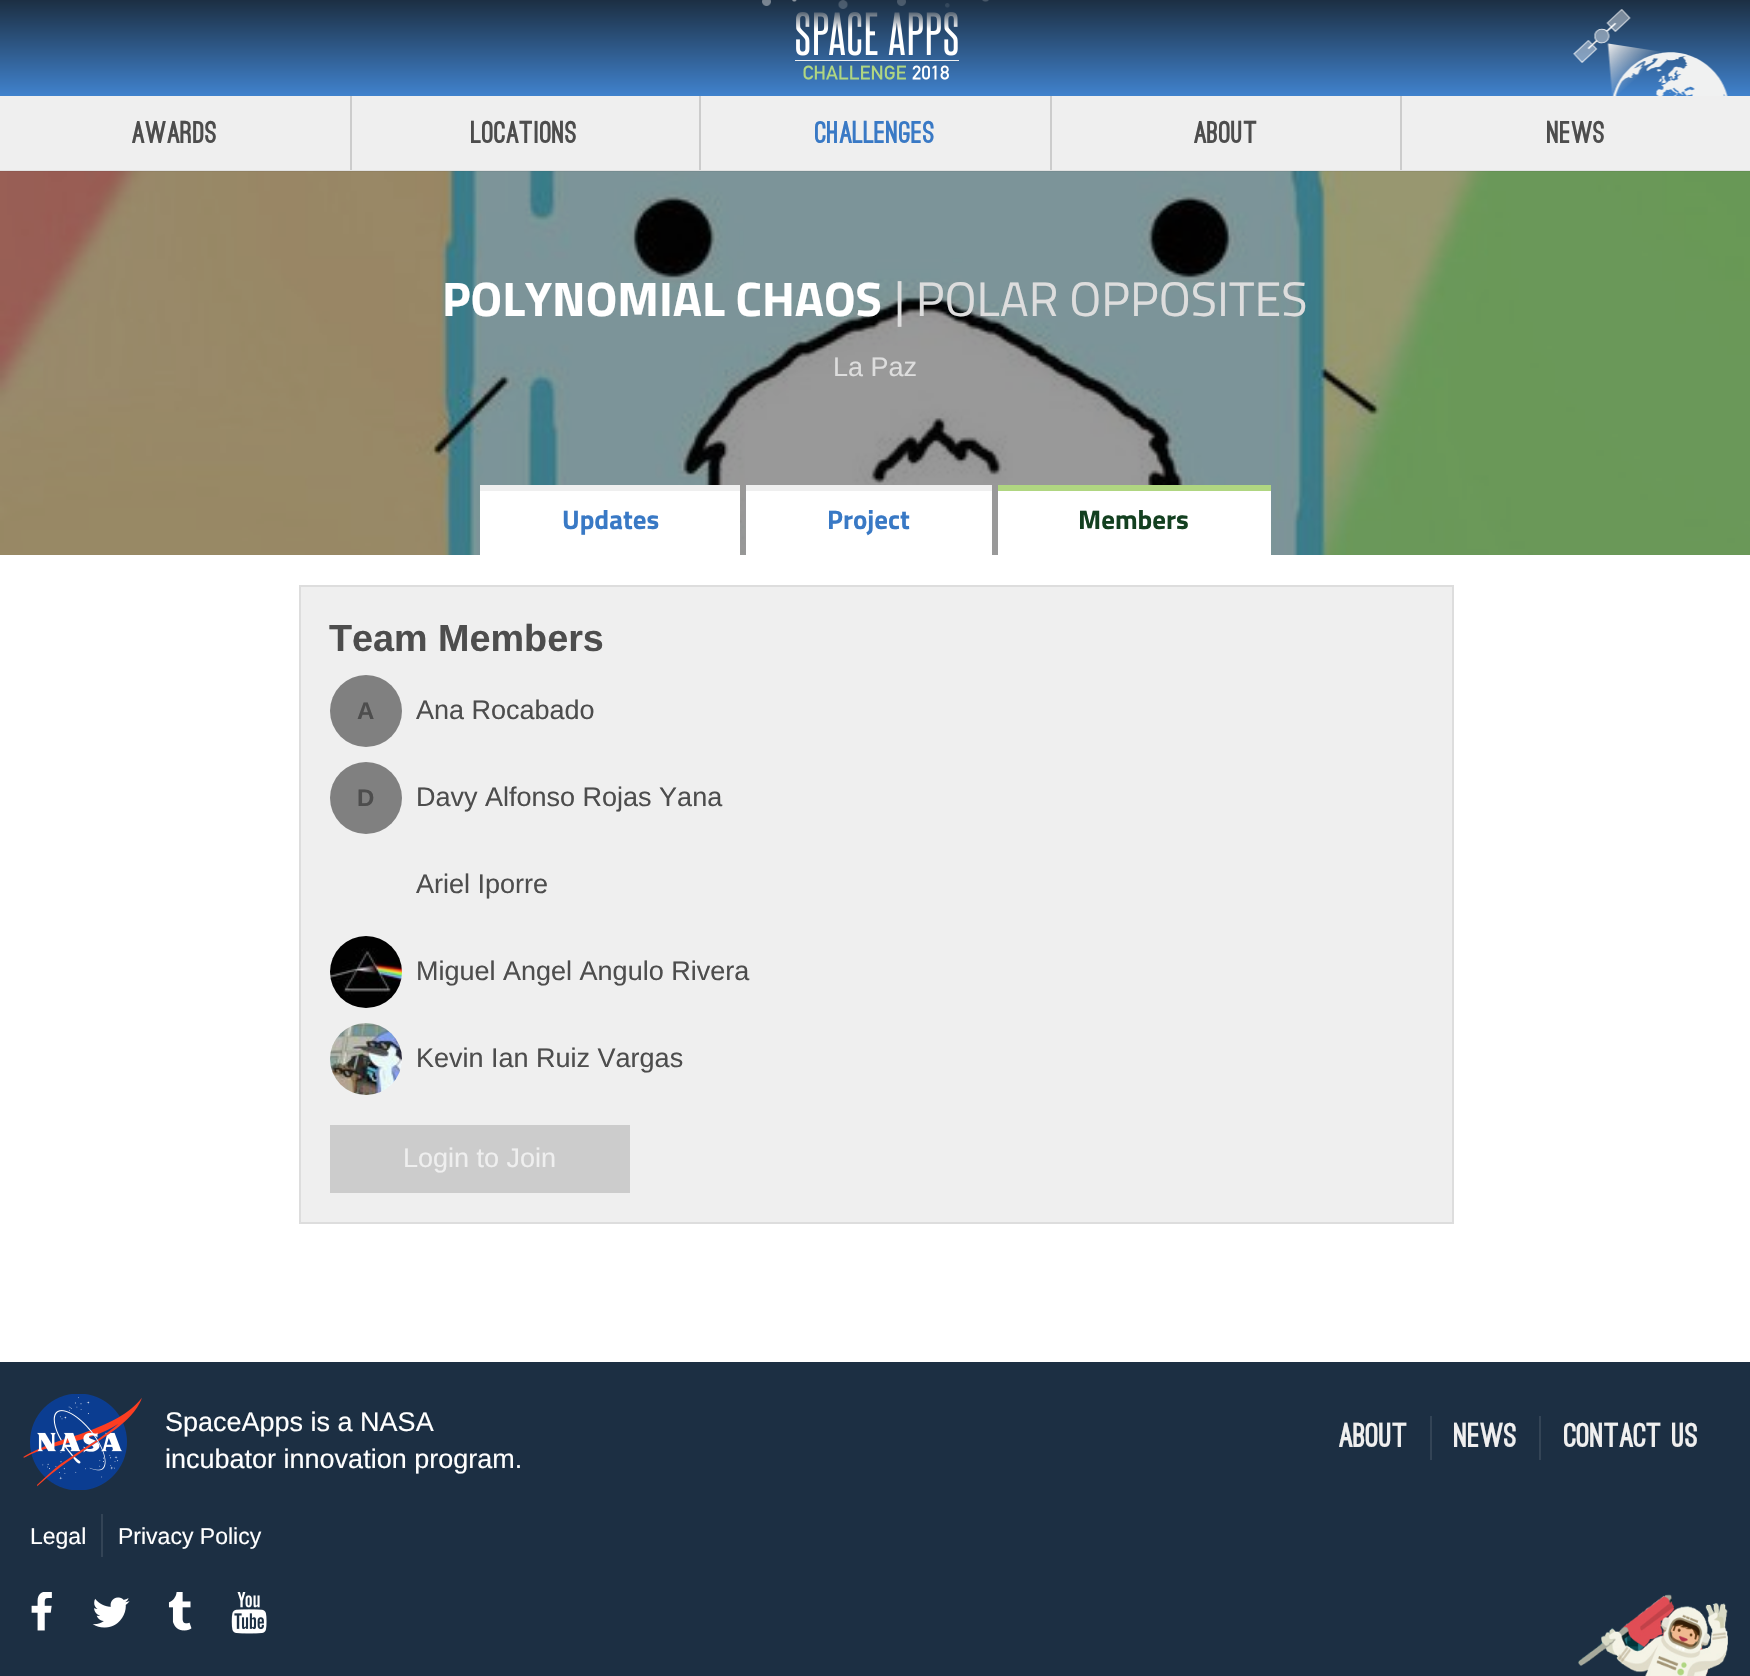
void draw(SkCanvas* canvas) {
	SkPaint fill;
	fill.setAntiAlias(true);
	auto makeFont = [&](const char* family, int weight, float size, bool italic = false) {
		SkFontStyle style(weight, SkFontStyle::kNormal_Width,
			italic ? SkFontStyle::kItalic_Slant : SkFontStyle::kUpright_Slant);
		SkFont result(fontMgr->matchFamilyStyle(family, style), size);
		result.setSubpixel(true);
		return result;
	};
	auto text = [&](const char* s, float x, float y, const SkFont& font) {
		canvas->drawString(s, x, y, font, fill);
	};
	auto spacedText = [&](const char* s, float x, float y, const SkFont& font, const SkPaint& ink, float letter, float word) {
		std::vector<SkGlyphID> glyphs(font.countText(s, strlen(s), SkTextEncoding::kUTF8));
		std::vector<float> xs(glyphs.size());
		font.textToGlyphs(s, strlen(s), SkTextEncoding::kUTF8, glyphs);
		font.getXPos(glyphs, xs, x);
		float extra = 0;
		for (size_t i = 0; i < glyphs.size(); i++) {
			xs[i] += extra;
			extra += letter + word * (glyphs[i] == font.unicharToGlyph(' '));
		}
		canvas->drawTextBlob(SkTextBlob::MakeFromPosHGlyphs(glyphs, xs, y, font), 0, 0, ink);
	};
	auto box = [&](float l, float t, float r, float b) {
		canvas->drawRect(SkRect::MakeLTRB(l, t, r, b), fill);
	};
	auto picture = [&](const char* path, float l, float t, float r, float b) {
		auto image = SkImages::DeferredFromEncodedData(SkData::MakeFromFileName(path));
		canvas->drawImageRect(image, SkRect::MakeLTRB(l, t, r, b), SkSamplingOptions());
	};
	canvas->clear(0xFFFFFFFF);
	fill.setColor(0xFFEFEFEF);
	box(0, 96, 1750, 171);
	picture("image3.png", 0, 171, 1750, 555);
	fill.setColor(0x0D000000);
	box(0, 170, 1750, 172);
	{
		const SkColor colors[] = {0xFF4082CD, 0xFF1C2F43};
		const float stops[] = {0, 1};
		const SkPoint ends[] = {{875, 96}, {875, 0}};
		fill.setShader(SkGradientShader::MakeLinear(ends, colors, stops, 2, SkTileMode::kClamp));
		fill.setAlpha(255);
	}
	box(0, 0, 1750, 96);
	picture("image0.png", 762, 0, 989, 9);
	picture("image1.png", 795, 12, 959, 80);
	picture("image2.png", 1573, 9, 1728, 96);
	fill.setShader(nullptr);
	fill.setColor(0xFFCCCCCC);
	box(350, 96, 352, 170);
	box(699, 96, 701, 170);
	box(1050, 96, 1052, 170);
	box(1400, 96, 1402, 170);
	fill.setColor(0xFFFFFFFF);
	box(480, 491, 740, 555);
	fill.setColor(0xFFEFEFEF);
	box(480, 485, 740, 491);
	fill.setColor(0xFFFFFFFF);
	box(746, 491, 992, 555);
	fill.setColor(0xFFEFEFEF);
	box(746, 485, 992, 491);
	fill.setColor(0xFFFFFFFF);
	box(998, 491, 1271, 555);
	fill.setColor(0xFFB0D681);
	box(998, 485, 1271, 491);
	fill.setColor(0xFFEFEFEF);
	canvas->drawRect(SkRect::MakeLTRB(300, 586, 1453, 1223), fill);
	fill.setStyle(SkPaint::kStroke_Style);
	fill.setStrokeWidth(2);
	fill.setColor(0xFFDDDDDD);
	canvas->drawRect(SkRect::MakeLTRB(300, 586, 1453, 1223), fill);
	fill.setStyle(SkPaint::kFill_Style);
	fill.setColor(0xFF808080);
	canvas->drawCircle(366, 711, 36, fill);
	canvas->drawCircle(366, 798, 36, fill);
	picture("image4.png", 330, 936, 402, 1008);
	picture("image5.png", 330, 1023, 402, 1095);
	fill.setColor(0xFFCCCCCC);
	box(330, 1125, 630, 1193);
	fill.setColor(0xFF1C2F43);
	box(0, 1362, 1750, 1676);
	picture("image6.png", 23, 1394, 142, 1490);
	fill.setColor(0xFF334456);
	box(1430, 1416, 1432, 1460);
	box(1539, 1416, 1541, 1460);
	box(101, 1514, 103, 1557);
	picture("image7.png", 31, 1592, 52, 1631);
	picture("image8.png", 92, 1597, 130, 1628);
	picture("image9.png", 168, 1592, 192, 1631);
	picture("image10.png", 231, 1592, 267, 1634);
	picture("image11.png", 1578, 1594, 1728, 1676);
	auto font1 = makeFont("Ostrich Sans", 900, 30);
	fill.setColor(0xFF4D4D4D);
	spacedText("Awards", 132, 143, font1, fill, 0.25f, 0);
	spacedText("Locations", 471, 143, font1, fill, 0.25f, 0);
	fill.setColor(0xFF3979C5);
	spacedText("Challenges", 815, 143, font1, fill, 0.25f, 0);
	fill.setColor(0xFF4D4D4D);
	spacedText("About", 1194, 143, font1, fill, 0.25f, 0);
	spacedText("News", 1547, 143, font1, fill, 0.25f, 0);
	auto font2 = makeFont("Titillium Web", 700, 48.5f);
	fill.setColor(0xFFFFFFFF);
	text("POLYNOMIAL CHAOS", 442, 316, font2);
	auto font3 = makeFont("Titillium Web", 400, 48.5f);
	fill.setColor(0xFFDDDDDD);
	text("| POLAR OPPOSITES", 894, 316, font3);
	auto font4 = makeFont("Liberation Sans", 400, 27);
	text("La Paz", 833, 376, font4);
	auto font5 = makeFont("Titillium Web", 700, 27);
	fill.setColor(0xFF3979C5);
	text("Updates", 562, 529, font5);
	text("Project", 827, 529, font5);
	fill.setColor(0xFF134020);
	text("Members", 1078, 529, font5);
	auto font6 = makeFont("Liberation Sans", 700, 37.75f);
	fill.setColor(0xFF4D4D4D);
	text("Team Members", 329, 651, font6);
	auto font7 = makeFont("Liberation Sans", 700, 24);
	text("A", 357, 719, font7);
	text("Ana Rocabado", 416, 719, font4);
	text("D", 357, 806, font7);
	text("Davy Alfonso Rojas Yana", 416, 806, font4);
	text("Ariel Iporre", 416, 893, font4);
	text("Miguel Angel Angulo Rivera", 416, 980, font4);
	text("Kevin Ian Ruiz Vargas", 416, 1067, font4);
	fill.setColor(0xFFEFEFEF);
	text("Login to Join", 403, 1167, font4);
	fill.setColor(0xFFFFFFFF);
	text("SpaceApps is a NASA", 165, 1431, font4);
	text("incubator innovation program.", 165, 1468, font4);
	auto font8 = makeFont("Ostrich Sans", 900, 33);
	fill.setColor(0xFFEFEFEF);
	text("About", 1339, 1447, font8);
	text("News", 1454, 1447, font8);
	text("Contact Us", 1564, 1447, font8);
	auto font9 = makeFont("Liberation Sans", 400, 23);
	fill.setColor(0xFFFFFFFF);
	text("Legal", 30, 1544, font9);
	text("Privacy Policy", 118, 1544, font9);
}
